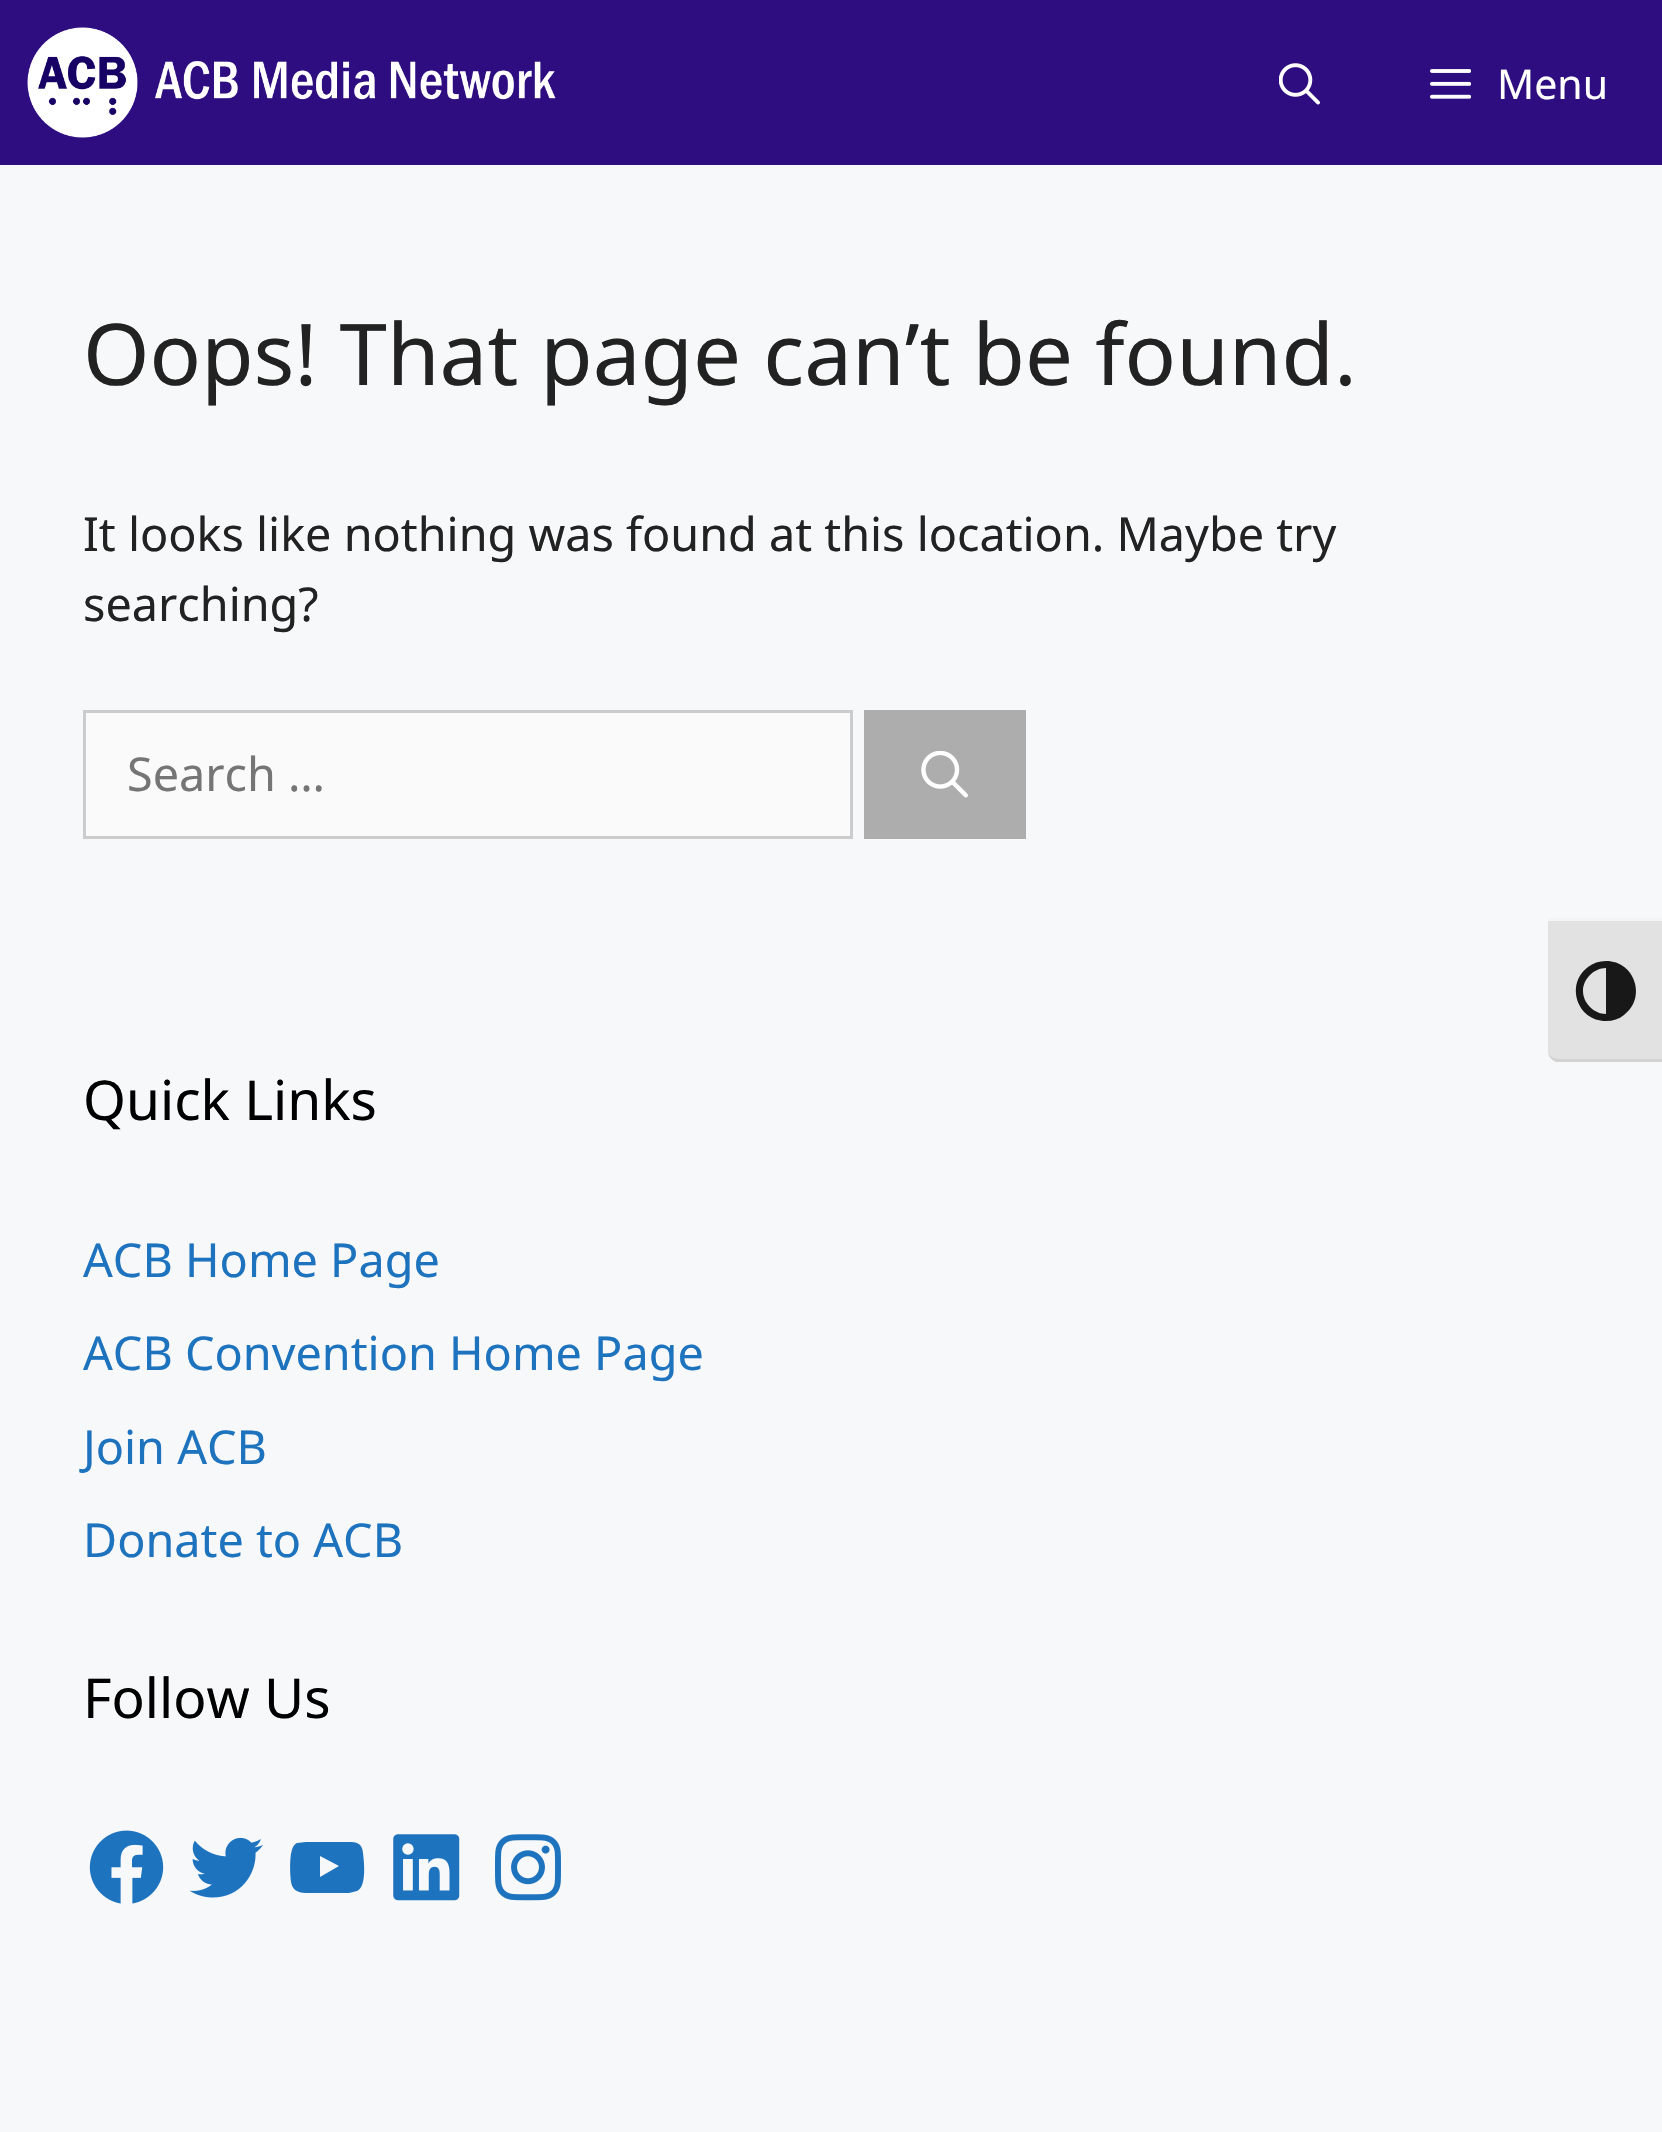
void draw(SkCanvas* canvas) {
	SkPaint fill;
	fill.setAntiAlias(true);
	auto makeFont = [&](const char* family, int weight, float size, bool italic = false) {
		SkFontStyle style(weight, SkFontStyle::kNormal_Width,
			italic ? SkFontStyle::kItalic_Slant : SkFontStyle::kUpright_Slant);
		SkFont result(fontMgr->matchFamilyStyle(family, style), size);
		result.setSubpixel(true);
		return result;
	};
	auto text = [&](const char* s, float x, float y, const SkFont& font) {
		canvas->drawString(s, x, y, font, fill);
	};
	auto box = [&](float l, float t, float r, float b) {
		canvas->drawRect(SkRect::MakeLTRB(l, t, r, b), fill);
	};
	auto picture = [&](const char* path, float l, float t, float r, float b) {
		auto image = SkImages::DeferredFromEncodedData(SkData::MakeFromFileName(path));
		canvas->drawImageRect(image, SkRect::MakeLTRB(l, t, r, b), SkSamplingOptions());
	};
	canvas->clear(0xFFF7F8F9);
	fill.setColor(0xFF2D0D80);
	box(0, 0, 1662, 165);
	picture("image0.png", 27, 27, 556, 138);
	picture("image1.png", 1279, 63, 1320, 105);
	picture("image2.png", 1430, 69, 1471, 99);
	fill.setColor(0xFFFAFAFA);
	canvas->drawRect(SkRect::MakeLTRB(84.5f, 711.5f, 851.5f, 837.5f), fill);
	fill.setStyle(SkPaint::kStroke_Style);
	fill.setStrokeWidth(3);
	fill.setColor(0xFFCCCCCC);
	canvas->drawRect(SkRect::MakeLTRB(84.5f, 711.5f, 851.5f, 837.5f), fill);
	fill.setStyle(SkPaint::kFill_Style);
	fill.setColor(0xFFADADAD);
	box(864, 710, 1026, 839);
	picture("image3.png", 921, 751, 968, 798);
	fill.setColor(0xFFE2E2E2);
	canvas->drawPath(SkPathBuilder().moveTo(1548, 919).lineTo(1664, 919).lineTo(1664, 1062).lineTo(1559, 1062).cubicTo(1553, 1062, 1548, 1057, 1548, 1051).close().detach(), fill);
	fill.setColor(0xFFF5F5F5);
	box(1548, 918, 1662, 921);
	fill.setColor(0xFFD2D2D2);
	canvas->drawPath(SkPathBuilder().moveTo(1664, 1062).lineTo(1556, 1062).cubicTo(1552, 1060, 1549, 1057, 1548, 1053).lineTo(1548, 1052).cubicTo(1549, 1056, 1554, 1059, 1559, 1059).lineTo(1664, 1059).close().detach(), fill);
	fill.setColor(0xFF181818);
	canvas->drawPath(SkPathBuilder().moveTo(1606, 961).cubicTo(1599, 961, 1593, 963, 1588, 967).cubicTo(1565, 984, 1577, 1021, 1606, 1021).cubicTo(1613, 1021, 1619, 1019, 1624, 1015).cubicTo(1647, 998, 1635, 961, 1606, 961).close().moveTo(1583, 991).cubicTo(1583, 979, 1594, 968, 1606, 968).lineTo(1606, 1014).cubicTo(1594, 1014, 1583, 1003, 1583, 991).close().detach(), fill);
	picture("image4.png", 89, 1830, 164, 1904);
	picture("image5.png", 189, 1837, 263, 1898);
	fill.setColor(0xFF1E73BE);
	canvas->drawPath(SkPathBuilder().moveTo(363, 1853).cubicTo(362, 1841, 354, 1842, 345, 1842).lineTo(322, 1842).lineTo(306, 1842).lineTo(297, 1843).cubicTo(295, 1844, 294, 1845, 293, 1847).cubicTo(289, 1855, 290, 1874, 291, 1882).cubicTo(293, 1894, 303, 1893, 313, 1893).lineTo(333, 1893).lineTo(349, 1893).lineTo(357, 1891).cubicTo(367, 1887, 364, 1861, 363, 1853).close().moveTo(320, 1877).lineTo(320, 1856).lineTo(339, 1866).close().detach(), fill);
	picture("image6.png", 393, 1834, 460, 1901);
	picture("image7.png", 495, 1834, 561, 1901);
	auto font1 = makeFont("Noto Sans", 400, 41);
	fill.setColor(0xFFFFFFFF);
	text("Menu", 1497, 99, font1);
	auto font2 = makeFont("Noto Sans", 400, 85.25f);
	fill.setColor(0xFF222222);
	text("Oops! That page can’t be found.", 83, 385, font2);
	auto font3 = makeFont("Noto Sans", 400, 46.75f);
	text("It looks like nothing was found at this location. Maybe try", 83, 551, font3);
	text("searching?", 83, 621, font3);
	fill.setColor(0xFF757575);
	text("Search …", 127, 791, font3);
	auto font4 = makeFont("Noto Sans", 400, 55);
	fill.setColor(0xFF000000);
	text("Quick Links", 83, 1120, font4);
	fill.setColor(0xFF1E73BE);
	text("ACB Home Page", 83, 1277, font3);
	text("ACB Convention Home Page", 83, 1370, font3);
	text("Join ACB", 83, 1464, font3);
	text("Donate to ACB", 83, 1557, font3);
	fill.setColor(0xFF000000);
	text("Follow Us", 83, 1718, font4);
}
